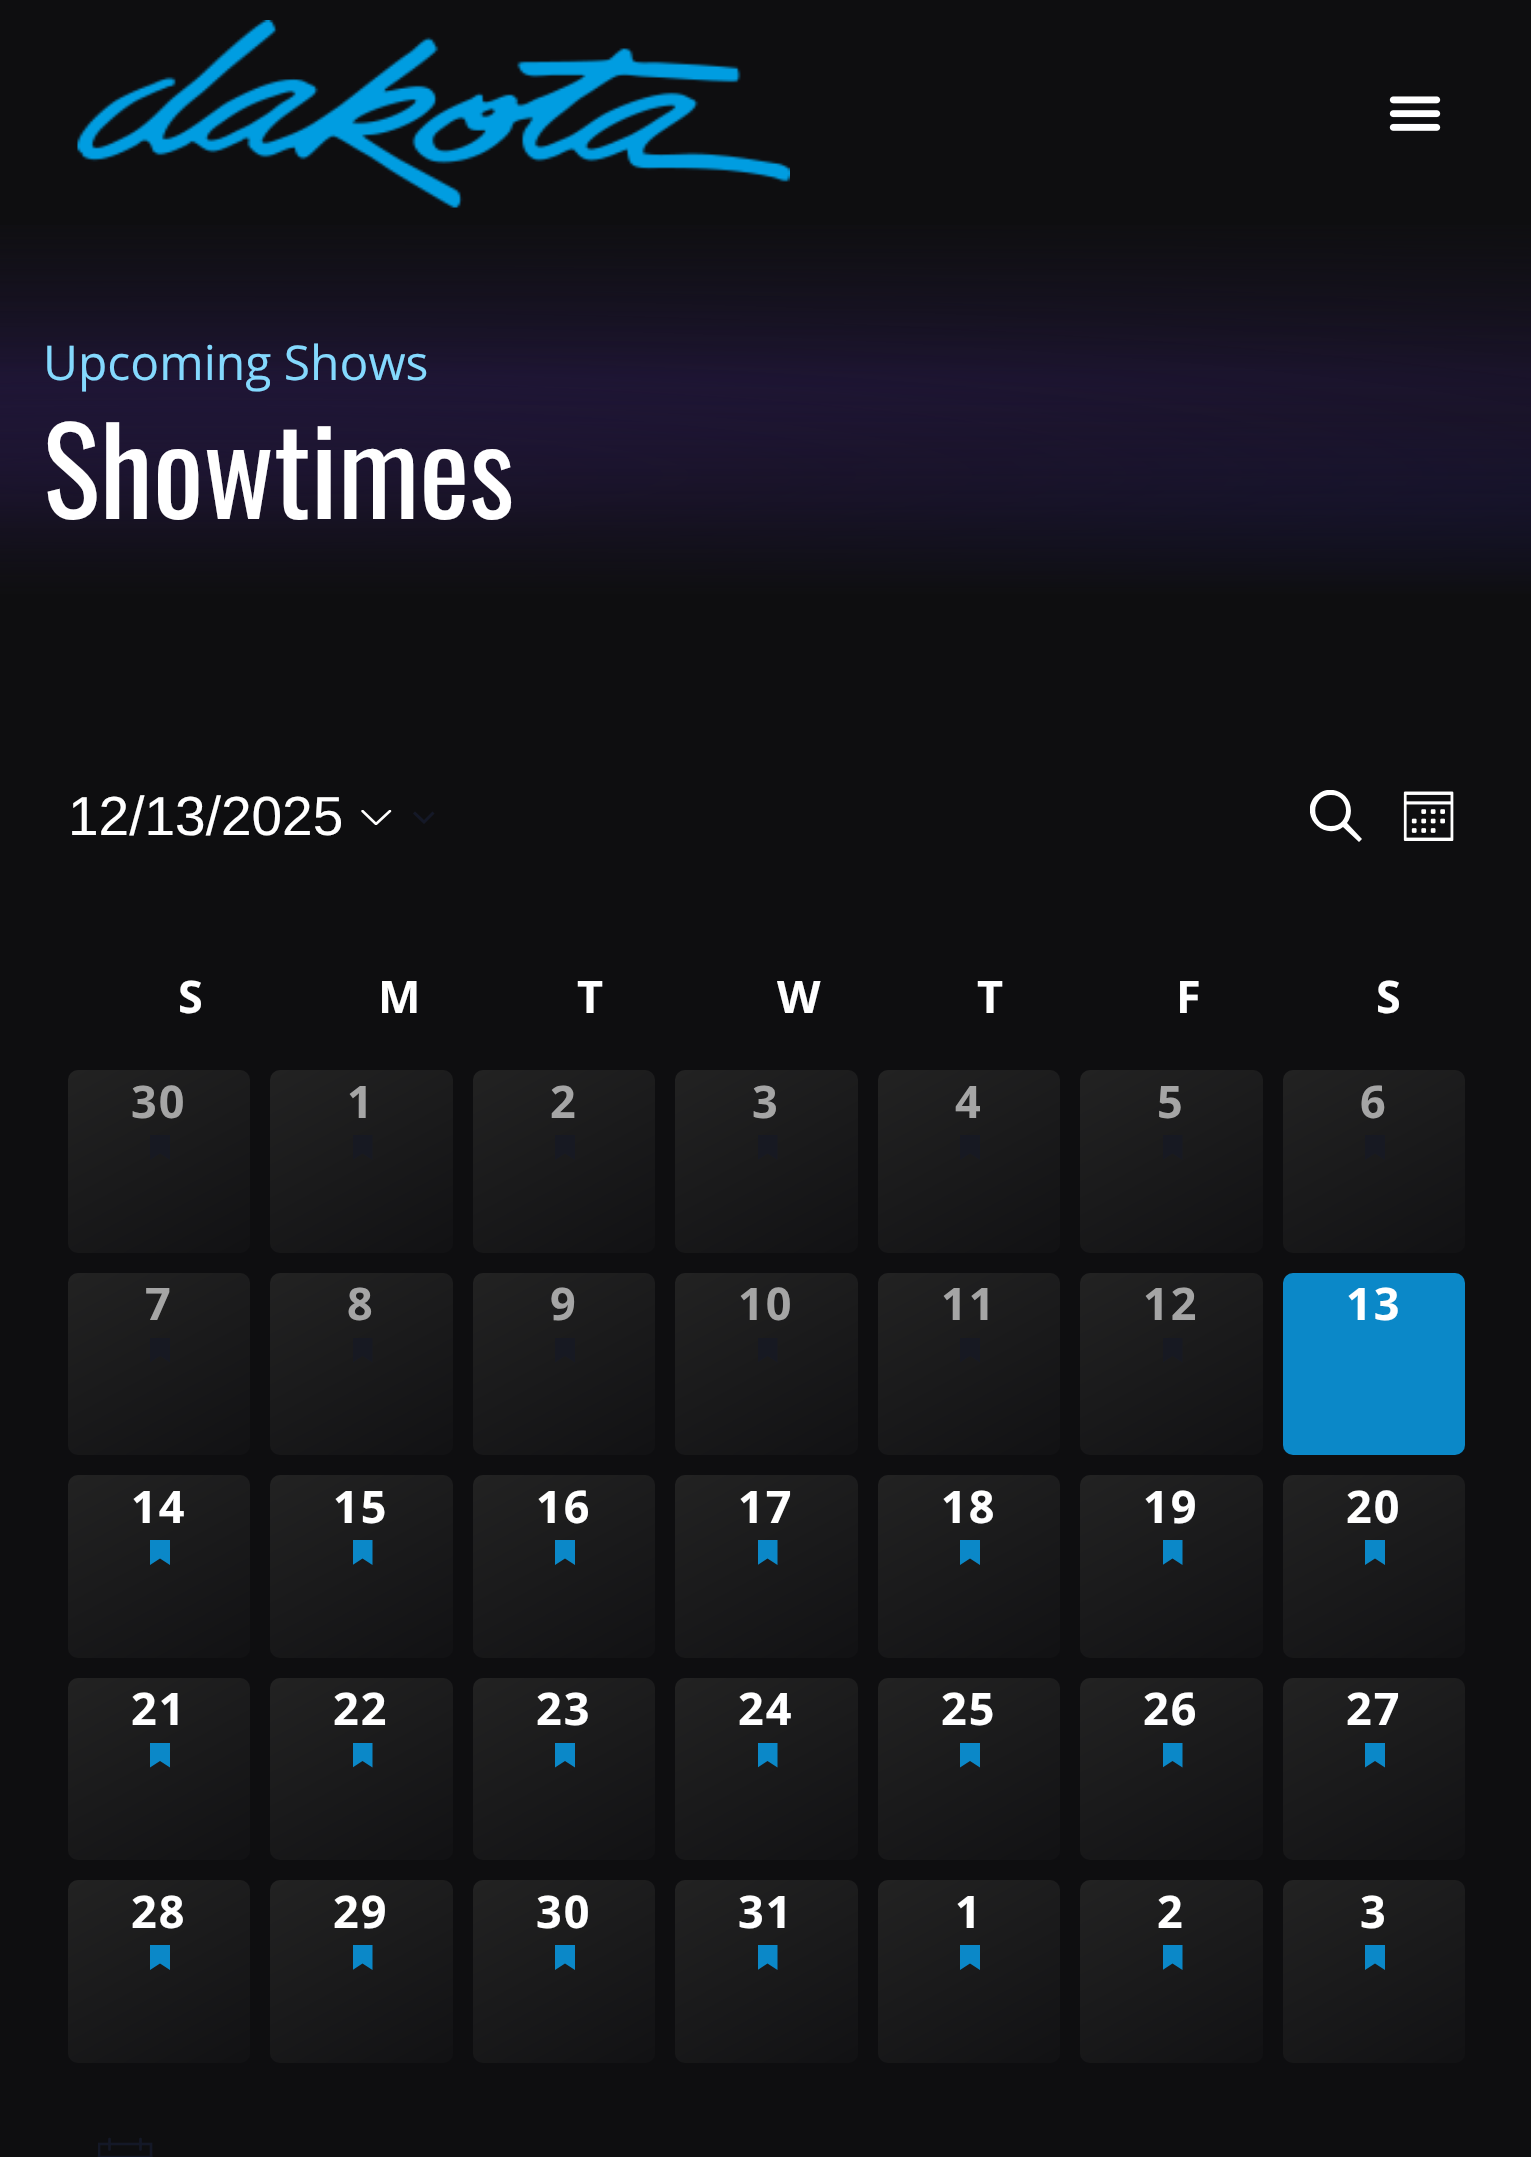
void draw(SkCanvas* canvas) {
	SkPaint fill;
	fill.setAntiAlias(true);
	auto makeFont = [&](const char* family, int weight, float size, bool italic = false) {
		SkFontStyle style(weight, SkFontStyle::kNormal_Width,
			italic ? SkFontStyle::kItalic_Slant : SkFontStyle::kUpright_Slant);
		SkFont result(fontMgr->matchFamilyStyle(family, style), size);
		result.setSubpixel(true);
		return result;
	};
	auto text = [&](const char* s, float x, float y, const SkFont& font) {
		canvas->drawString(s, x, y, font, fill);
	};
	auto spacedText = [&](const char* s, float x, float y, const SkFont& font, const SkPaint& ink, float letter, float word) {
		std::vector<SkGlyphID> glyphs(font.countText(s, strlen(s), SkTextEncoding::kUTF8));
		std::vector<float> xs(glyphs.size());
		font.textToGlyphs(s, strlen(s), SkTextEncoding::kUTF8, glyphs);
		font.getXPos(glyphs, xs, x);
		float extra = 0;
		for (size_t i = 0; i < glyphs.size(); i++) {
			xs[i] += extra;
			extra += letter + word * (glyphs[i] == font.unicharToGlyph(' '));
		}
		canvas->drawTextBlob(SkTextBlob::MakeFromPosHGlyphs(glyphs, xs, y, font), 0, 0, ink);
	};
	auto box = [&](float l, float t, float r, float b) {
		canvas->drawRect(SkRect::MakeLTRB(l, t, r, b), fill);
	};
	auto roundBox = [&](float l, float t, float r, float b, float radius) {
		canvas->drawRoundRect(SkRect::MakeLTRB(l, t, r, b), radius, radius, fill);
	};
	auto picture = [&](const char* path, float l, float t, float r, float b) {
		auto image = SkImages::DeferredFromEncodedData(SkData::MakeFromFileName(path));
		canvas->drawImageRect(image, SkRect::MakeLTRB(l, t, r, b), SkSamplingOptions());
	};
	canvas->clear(0xFF0E0E10);
	picture("image0.png", 77, 20, 790, 208);
	picture("image1.png", 1389, 96, 1441, 131);
	{
		const SkColor colors[] = {0xFF171F79, 0xFF0E0E10};
		const float stops[] = {0, 1};
		SkMatrix m = SkMatrix::Translate(1407, 608).preScale(914, 188);
		fill.setShader(SkGradientShader::MakeRadial({0, 0}, 1, colors, stops, 2, SkTileMode::kClamp, 0, &m));
		fill.setAlpha(255);
	}
	box(518, 424, 1531, 594);
	{
		const SkColor colors[] = {0xFF241743, 0x00241743};
		const float stops[] = {0, 1};
		SkMatrix m = SkMatrix::Translate(193, 475).preScale(3282, 327);
		fill.setShader(SkGradientShader::MakeRadial({0, 0}, 1, colors, stops, 2, SkTileMode::kClamp, 0, &m));
		fill.setAlpha(255);
	}
	box(0, 225, 1531, 594);
	{
		const SkColor colors[] = {0xFF0E0E10, 0x800E0E10, 0x000E0E10, 0x800E0E10, 0xFF0E0E10, 0xFF0E0E10};
		const float stops[] = {0, 0.16f, 0.4f, 0.69f, 0.9f, 1};
		const SkPoint ends[] = {{766, 204}, {766, 638}};
		fill.setShader(SkGradientShader::MakeLinear(ends, colors, stops, 6, SkTileMode::kClamp));
		fill.setAlpha(255);
	}
	box(0, 225, 1531, 594);
	canvas->save();
	canvas->clipRect(SkRect::MakeLTRB(360, 810, 393, 825));
	fill.setStyle(SkPaint::kStroke_Style);
	fill.setStrokeWidth(2.5f);
	fill.setStrokeCap(SkPaint::kRound_Cap);
	fill.setStrokeJoin(SkPaint::kRound_Join);
	fill.setShader(nullptr);
	fill.setColor(0xFFFFFFFF);
	canvas->drawPath(SkPathBuilder().moveTo(362.5f, 811).lineTo(376, 824).lineTo(390, 811).detach(), fill);
	canvas->restore();
	fill.setStyle(SkPaint::kFill_Style);
	fill.setColor(0xFF141827);
	canvas->drawPath(SkPathBuilder(SkPathFillType::kEvenOdd).moveTo(415, 811.5f).lineTo(424, 820).lineTo(432.5f, 811.5f).lineTo(434.5f, 813.5f).lineTo(424, 824).lineTo(413, 813.5f).close().detach(), fill);
	canvas->save();
	canvas->clipRect(SkRect::MakeLTRB(1310, 790, 1363, 843));
	fill.setColor(0xFFFFFFFF);
	canvas->drawPath(SkPathBuilder(SkPathFillType::kEvenOdd).moveTo(1347, 823).lineTo(1362, 839).lineTo(1359, 842).lineTo(1343, 827).cubicTo(1325, 841, 1301, 818, 1313, 799).cubicTo(1316, 795, 1321, 791, 1327, 790).cubicTo(1333, 789, 1340, 791, 1345, 796).cubicTo(1352, 803, 1353, 815, 1347, 823).close().moveTo(1331, 795).cubicTo(1310, 795, 1310, 826, 1331, 826).cubicTo(1351, 826, 1351, 795, 1331, 795).close().detach(), fill);
	canvas->restore();
	picture("image2.png", 1403, 791, 1454, 841);
	{
		const SkColor colors[] = {0xFF222222, 0xFF121214};
		const float stops[] = {0.01f, 0.97f};
		const SkPoint ends[] = {{101, 1052}, {217, 1270}};
		fill.setShader(SkGradientShader::MakeLinear(ends, colors, stops, 2, SkTileMode::kClamp));
		fill.setAlpha(255);
	}
	roundBox(68, 1070, 250, 1253, 10);
	fill.setShader(nullptr);
	fill.setColor(0xFF171922);
	canvas->drawPath(SkPathBuilder(SkPathFillType::kEvenOdd).moveTo(150, 1135).lineTo(170, 1135).lineTo(170, 1160).lineTo(160, 1153.5f).lineTo(150, 1160).close().detach(), fill);
	{
		const SkColor colors[] = {0xFF222222, 0xFF121214};
		const float stops[] = {0.01f, 0.97f};
		const SkPoint ends[] = {{303, 1052}, {419, 1270}};
		fill.setShader(SkGradientShader::MakeLinear(ends, colors, stops, 2, SkTileMode::kClamp));
		fill.setAlpha(255);
	}
	roundBox(270, 1070, 453, 1253, 10);
	canvas->save();
	canvas->clipRect(SkRect::MakeLTRB(353, 1135, 373, 1160));
	fill.setShader(nullptr);
	fill.setColor(0xFF171922);
	canvas->drawPath(SkPathBuilder(SkPathFillType::kEvenOdd).moveTo(352.5f, 1135).lineTo(372.5f, 1135).lineTo(372.5f, 1160).lineTo(362.5f, 1153.5f).lineTo(352.5f, 1160).close().detach(), fill);
	canvas->restore();
	{
		const SkColor colors[] = {0xFF222222, 0xFF121214};
		const float stops[] = {0.01f, 0.97f};
		const SkPoint ends[] = {{506, 1052}, {622, 1270}};
		fill.setShader(SkGradientShader::MakeLinear(ends, colors, stops, 2, SkTileMode::kClamp));
		fill.setAlpha(255);
	}
	roundBox(473, 1070, 655, 1253, 10);
	fill.setShader(nullptr);
	fill.setColor(0xFF171922);
	canvas->drawPath(SkPathBuilder(SkPathFillType::kEvenOdd).moveTo(555, 1135).lineTo(575, 1135).lineTo(575, 1160).lineTo(565, 1153.5f).lineTo(555, 1160).close().detach(), fill);
	{
		const SkColor colors[] = {0xFF222222, 0xFF121214};
		const float stops[] = {0.01f, 0.97f};
		const SkPoint ends[] = {{708, 1052}, {824, 1270}};
		fill.setShader(SkGradientShader::MakeLinear(ends, colors, stops, 2, SkTileMode::kClamp));
		fill.setAlpha(255);
	}
	roundBox(675, 1070, 858, 1253, 10);
	canvas->save();
	canvas->clipRect(SkRect::MakeLTRB(758, 1135, 778, 1160));
	fill.setShader(nullptr);
	fill.setColor(0xFF171922);
	canvas->drawPath(SkPathBuilder(SkPathFillType::kEvenOdd).moveTo(757.5f, 1135).lineTo(777.5f, 1135).lineTo(777.5f, 1160).lineTo(767.5f, 1153.5f).lineTo(757.5f, 1160).close().detach(), fill);
	canvas->restore();
	{
		const SkColor colors[] = {0xFF222222, 0xFF121214};
		const float stops[] = {0.01f, 0.97f};
		const SkPoint ends[] = {{911, 1052}, {1027, 1270}};
		fill.setShader(SkGradientShader::MakeLinear(ends, colors, stops, 2, SkTileMode::kClamp));
		fill.setAlpha(255);
	}
	roundBox(878, 1070, 1060, 1253, 10);
	fill.setShader(nullptr);
	fill.setColor(0xFF171922);
	canvas->drawPath(SkPathBuilder(SkPathFillType::kEvenOdd).moveTo(960, 1135).lineTo(980, 1135).lineTo(980, 1160).lineTo(970, 1153.5f).lineTo(960, 1160).close().detach(), fill);
	{
		const SkColor colors[] = {0xFF222222, 0xFF121214};
		const float stops[] = {0.01f, 0.97f};
		const SkPoint ends[] = {{1113, 1052}, {1229, 1270}};
		fill.setShader(SkGradientShader::MakeLinear(ends, colors, stops, 2, SkTileMode::kClamp));
		fill.setAlpha(255);
	}
	roundBox(1080, 1070, 1263, 1253, 10);
	canvas->save();
	canvas->clipRect(SkRect::MakeLTRB(1163, 1135, 1183, 1160));
	fill.setShader(nullptr);
	fill.setColor(0xFF171922);
	canvas->drawPath(SkPathBuilder(SkPathFillType::kEvenOdd).moveTo(1162.5f, 1135).lineTo(1182.5f, 1135).lineTo(1182.5f, 1160).lineTo(1172.5f, 1153.5f).lineTo(1162.5f, 1160).close().detach(), fill);
	canvas->restore();
	{
		const SkColor colors[] = {0xFF222222, 0xFF121214};
		const float stops[] = {0.01f, 0.97f};
		const SkPoint ends[] = {{1316, 1052}, {1432, 1270}};
		fill.setShader(SkGradientShader::MakeLinear(ends, colors, stops, 2, SkTileMode::kClamp));
		fill.setAlpha(255);
	}
	roundBox(1283, 1070, 1465, 1253, 10);
	fill.setShader(nullptr);
	fill.setColor(0xFF171922);
	canvas->drawPath(SkPathBuilder(SkPathFillType::kEvenOdd).moveTo(1365, 1135).lineTo(1385, 1135).lineTo(1385, 1160).lineTo(1375, 1153.5f).lineTo(1365, 1160).close().detach(), fill);
	{
		const SkColor colors[] = {0xFF222222, 0xFF121214};
		const float stops[] = {0.01f, 0.97f};
		const SkPoint ends[] = {{101, 1255}, {217, 1473}};
		fill.setShader(SkGradientShader::MakeLinear(ends, colors, stops, 2, SkTileMode::kClamp));
		fill.setAlpha(255);
	}
	roundBox(68, 1273, 250, 1455, 10);
	canvas->save();
	canvas->clipRect(SkRect::MakeLTRB(150, 1338, 170, 1363));
	fill.setShader(nullptr);
	fill.setColor(0xFF171922);
	canvas->drawPath(SkPathBuilder(SkPathFillType::kEvenOdd).moveTo(150, 1337.5f).lineTo(170, 1337.5f).lineTo(170, 1362.5f).lineTo(160, 1356).lineTo(150, 1362.5f).close().detach(), fill);
	canvas->restore();
	{
		const SkColor colors[] = {0xFF222222, 0xFF121214};
		const float stops[] = {0.01f, 0.97f};
		const SkPoint ends[] = {{303, 1255}, {419, 1473}};
		fill.setShader(SkGradientShader::MakeLinear(ends, colors, stops, 2, SkTileMode::kClamp));
		fill.setAlpha(255);
	}
	roundBox(270, 1273, 453, 1455, 10);
	canvas->save();
	canvas->clipRect(SkRect::MakeLTRB(353, 1338, 373, 1363));
	fill.setShader(nullptr);
	fill.setColor(0xFF171922);
	canvas->drawPath(SkPathBuilder(SkPathFillType::kEvenOdd).moveTo(352.5f, 1337.5f).lineTo(372.5f, 1337.5f).lineTo(372.5f, 1362.5f).lineTo(362.5f, 1356).lineTo(352.5f, 1362.5f).close().detach(), fill);
	canvas->restore();
	{
		const SkColor colors[] = {0xFF222222, 0xFF121214};
		const float stops[] = {0.01f, 0.97f};
		const SkPoint ends[] = {{506, 1255}, {622, 1473}};
		fill.setShader(SkGradientShader::MakeLinear(ends, colors, stops, 2, SkTileMode::kClamp));
		fill.setAlpha(255);
	}
	roundBox(473, 1273, 655, 1455, 10);
	canvas->save();
	canvas->clipRect(SkRect::MakeLTRB(555, 1338, 575, 1363));
	fill.setShader(nullptr);
	fill.setColor(0xFF171922);
	canvas->drawPath(SkPathBuilder(SkPathFillType::kEvenOdd).moveTo(555, 1337.5f).lineTo(575, 1337.5f).lineTo(575, 1362.5f).lineTo(565, 1356).lineTo(555, 1362.5f).close().detach(), fill);
	canvas->restore();
	{
		const SkColor colors[] = {0xFF222222, 0xFF121214};
		const float stops[] = {0.01f, 0.97f};
		const SkPoint ends[] = {{708, 1255}, {824, 1473}};
		fill.setShader(SkGradientShader::MakeLinear(ends, colors, stops, 2, SkTileMode::kClamp));
		fill.setAlpha(255);
	}
	roundBox(675, 1273, 858, 1455, 10);
	canvas->save();
	canvas->clipRect(SkRect::MakeLTRB(758, 1338, 778, 1363));
	fill.setShader(nullptr);
	fill.setColor(0xFF171922);
	canvas->drawPath(SkPathBuilder(SkPathFillType::kEvenOdd).moveTo(757.5f, 1337.5f).lineTo(777.5f, 1337.5f).lineTo(777.5f, 1362.5f).lineTo(767.5f, 1356).lineTo(757.5f, 1362.5f).close().detach(), fill);
	canvas->restore();
	{
		const SkColor colors[] = {0xFF222222, 0xFF121214};
		const float stops[] = {0.01f, 0.97f};
		const SkPoint ends[] = {{911, 1255}, {1027, 1473}};
		fill.setShader(SkGradientShader::MakeLinear(ends, colors, stops, 2, SkTileMode::kClamp));
		fill.setAlpha(255);
	}
	roundBox(878, 1273, 1060, 1455, 10);
	canvas->save();
	canvas->clipRect(SkRect::MakeLTRB(960, 1338, 980, 1363));
	fill.setShader(nullptr);
	fill.setColor(0xFF171922);
	canvas->drawPath(SkPathBuilder(SkPathFillType::kEvenOdd).moveTo(960, 1337.5f).lineTo(980, 1337.5f).lineTo(980, 1362.5f).lineTo(970, 1356).lineTo(960, 1362.5f).close().detach(), fill);
	canvas->restore();
	{
		const SkColor colors[] = {0xFF222222, 0xFF121214};
		const float stops[] = {0.01f, 0.97f};
		const SkPoint ends[] = {{1113, 1255}, {1229, 1473}};
		fill.setShader(SkGradientShader::MakeLinear(ends, colors, stops, 2, SkTileMode::kClamp));
		fill.setAlpha(255);
	}
	roundBox(1080, 1273, 1263, 1455, 10);
	canvas->save();
	canvas->clipRect(SkRect::MakeLTRB(1163, 1338, 1183, 1363));
	fill.setShader(nullptr);
	fill.setColor(0xFF171922);
	canvas->drawPath(SkPathBuilder(SkPathFillType::kEvenOdd).moveTo(1162.5f, 1337.5f).lineTo(1182.5f, 1337.5f).lineTo(1182.5f, 1362.5f).lineTo(1172.5f, 1356).lineTo(1162.5f, 1362.5f).close().detach(), fill);
	canvas->restore();
	fill.setColor(0xFF0B88C8);
	roundBox(1283, 1273, 1465, 1455, 10);
	{
		const SkColor colors[] = {0xFF222222, 0xFF121214};
		const float stops[] = {0.01f, 0.97f};
		const SkPoint ends[] = {{101, 1457}, {217, 1675}};
		fill.setShader(SkGradientShader::MakeLinear(ends, colors, stops, 2, SkTileMode::kClamp));
		fill.setAlpha(255);
	}
	roundBox(68, 1475, 250, 1658, 10);
	fill.setShader(nullptr);
	fill.setColor(0xFF0B88C8);
	canvas->drawPath(SkPathBuilder(SkPathFillType::kEvenOdd).moveTo(150, 1540).lineTo(170, 1540).lineTo(170, 1565).lineTo(160, 1558.5f).lineTo(150, 1565).close().detach(), fill);
	{
		const SkColor colors[] = {0xFF222222, 0xFF121214};
		const float stops[] = {0.01f, 0.97f};
		const SkPoint ends[] = {{303, 1457}, {419, 1675}};
		fill.setShader(SkGradientShader::MakeLinear(ends, colors, stops, 2, SkTileMode::kClamp));
		fill.setAlpha(255);
	}
	roundBox(270, 1475, 453, 1658, 10);
	canvas->save();
	canvas->clipRect(SkRect::MakeLTRB(353, 1540, 373, 1565));
	fill.setShader(nullptr);
	fill.setColor(0xFF0B88C8);
	canvas->drawPath(SkPathBuilder(SkPathFillType::kEvenOdd).moveTo(352.5f, 1540).lineTo(372.5f, 1540).lineTo(372.5f, 1565).lineTo(362.5f, 1558.5f).lineTo(352.5f, 1565).close().detach(), fill);
	canvas->restore();
	{
		const SkColor colors[] = {0xFF222222, 0xFF121214};
		const float stops[] = {0.01f, 0.97f};
		const SkPoint ends[] = {{506, 1457}, {622, 1675}};
		fill.setShader(SkGradientShader::MakeLinear(ends, colors, stops, 2, SkTileMode::kClamp));
		fill.setAlpha(255);
	}
	roundBox(473, 1475, 655, 1658, 10);
	fill.setShader(nullptr);
	fill.setColor(0xFF0B88C8);
	canvas->drawPath(SkPathBuilder(SkPathFillType::kEvenOdd).moveTo(555, 1540).lineTo(575, 1540).lineTo(575, 1565).lineTo(565, 1558.5f).lineTo(555, 1565).close().detach(), fill);
	{
		const SkColor colors[] = {0xFF222222, 0xFF121214};
		const float stops[] = {0.01f, 0.97f};
		const SkPoint ends[] = {{708, 1457}, {824, 1675}};
		fill.setShader(SkGradientShader::MakeLinear(ends, colors, stops, 2, SkTileMode::kClamp));
		fill.setAlpha(255);
	}
	roundBox(675, 1475, 858, 1658, 10);
	canvas->save();
	canvas->clipRect(SkRect::MakeLTRB(758, 1540, 778, 1565));
	fill.setShader(nullptr);
	fill.setColor(0xFF0B88C8);
	canvas->drawPath(SkPathBuilder(SkPathFillType::kEvenOdd).moveTo(757.5f, 1540).lineTo(777.5f, 1540).lineTo(777.5f, 1565).lineTo(767.5f, 1558.5f).lineTo(757.5f, 1565).close().detach(), fill);
	canvas->restore();
	{
		const SkColor colors[] = {0xFF222222, 0xFF121214};
		const float stops[] = {0.01f, 0.97f};
		const SkPoint ends[] = {{911, 1457}, {1027, 1675}};
		fill.setShader(SkGradientShader::MakeLinear(ends, colors, stops, 2, SkTileMode::kClamp));
		fill.setAlpha(255);
	}
	roundBox(878, 1475, 1060, 1658, 10);
	fill.setShader(nullptr);
	fill.setColor(0xFF0B88C8);
	canvas->drawPath(SkPathBuilder(SkPathFillType::kEvenOdd).moveTo(960, 1540).lineTo(980, 1540).lineTo(980, 1565).lineTo(970, 1558.5f).lineTo(960, 1565).close().detach(), fill);
	{
		const SkColor colors[] = {0xFF222222, 0xFF121214};
		const float stops[] = {0.01f, 0.97f};
		const SkPoint ends[] = {{1113, 1457}, {1229, 1675}};
		fill.setShader(SkGradientShader::MakeLinear(ends, colors, stops, 2, SkTileMode::kClamp));
		fill.setAlpha(255);
	}
	roundBox(1080, 1475, 1263, 1658, 10);
	canvas->save();
	canvas->clipRect(SkRect::MakeLTRB(1163, 1540, 1183, 1565));
	fill.setShader(nullptr);
	fill.setColor(0xFF0B88C8);
	canvas->drawPath(SkPathBuilder(SkPathFillType::kEvenOdd).moveTo(1162.5f, 1540).lineTo(1182.5f, 1540).lineTo(1182.5f, 1565).lineTo(1172.5f, 1558.5f).lineTo(1162.5f, 1565).close().detach(), fill);
	canvas->restore();
	{
		const SkColor colors[] = {0xFF222222, 0xFF121214};
		const float stops[] = {0.01f, 0.97f};
		const SkPoint ends[] = {{1316, 1457}, {1432, 1675}};
		fill.setShader(SkGradientShader::MakeLinear(ends, colors, stops, 2, SkTileMode::kClamp));
		fill.setAlpha(255);
	}
	roundBox(1283, 1475, 1465, 1658, 10);
	fill.setShader(nullptr);
	fill.setColor(0xFF0B88C8);
	canvas->drawPath(SkPathBuilder(SkPathFillType::kEvenOdd).moveTo(1365, 1540).lineTo(1385, 1540).lineTo(1385, 1565).lineTo(1375, 1558.5f).lineTo(1365, 1565).close().detach(), fill);
	{
		const SkColor colors[] = {0xFF222222, 0xFF121214};
		const float stops[] = {0.01f, 0.97f};
		const SkPoint ends[] = {{101, 1660}, {217, 1878}};
		fill.setShader(SkGradientShader::MakeLinear(ends, colors, stops, 2, SkTileMode::kClamp));
		fill.setAlpha(255);
	}
	roundBox(68, 1678, 250, 1860, 10);
	canvas->save();
	canvas->clipRect(SkRect::MakeLTRB(150, 1743, 170, 1768));
	fill.setShader(nullptr);
	fill.setColor(0xFF0B88C8);
	canvas->drawPath(SkPathBuilder(SkPathFillType::kEvenOdd).moveTo(150, 1742.5f).lineTo(170, 1742.5f).lineTo(170, 1767.5f).lineTo(160, 1761).lineTo(150, 1767.5f).close().detach(), fill);
	canvas->restore();
	{
		const SkColor colors[] = {0xFF222222, 0xFF121214};
		const float stops[] = {0.01f, 0.97f};
		const SkPoint ends[] = {{303, 1660}, {419, 1878}};
		fill.setShader(SkGradientShader::MakeLinear(ends, colors, stops, 2, SkTileMode::kClamp));
		fill.setAlpha(255);
	}
	roundBox(270, 1678, 453, 1860, 10);
	canvas->save();
	canvas->clipRect(SkRect::MakeLTRB(353, 1743, 373, 1768));
	fill.setShader(nullptr);
	fill.setColor(0xFF0B88C8);
	canvas->drawPath(SkPathBuilder(SkPathFillType::kEvenOdd).moveTo(352.5f, 1742.5f).lineTo(372.5f, 1742.5f).lineTo(372.5f, 1767.5f).lineTo(362.5f, 1761).lineTo(352.5f, 1767.5f).close().detach(), fill);
	canvas->restore();
	{
		const SkColor colors[] = {0xFF222222, 0xFF121214};
		const float stops[] = {0.01f, 0.97f};
		const SkPoint ends[] = {{506, 1660}, {622, 1878}};
		fill.setShader(SkGradientShader::MakeLinear(ends, colors, stops, 2, SkTileMode::kClamp));
		fill.setAlpha(255);
	}
	roundBox(473, 1678, 655, 1860, 10);
	canvas->save();
	canvas->clipRect(SkRect::MakeLTRB(555, 1743, 575, 1768));
	fill.setShader(nullptr);
	fill.setColor(0xFF0B88C8);
	canvas->drawPath(SkPathBuilder(SkPathFillType::kEvenOdd).moveTo(555, 1742.5f).lineTo(575, 1742.5f).lineTo(575, 1767.5f).lineTo(565, 1761).lineTo(555, 1767.5f).close().detach(), fill);
	canvas->restore();
	{
		const SkColor colors[] = {0xFF222222, 0xFF121214};
		const float stops[] = {0.01f, 0.97f};
		const SkPoint ends[] = {{708, 1660}, {824, 1878}};
		fill.setShader(SkGradientShader::MakeLinear(ends, colors, stops, 2, SkTileMode::kClamp));
		fill.setAlpha(255);
	}
	roundBox(675, 1678, 858, 1860, 10);
	canvas->save();
	canvas->clipRect(SkRect::MakeLTRB(758, 1743, 778, 1768));
	fill.setShader(nullptr);
	fill.setColor(0xFF0B88C8);
	canvas->drawPath(SkPathBuilder(SkPathFillType::kEvenOdd).moveTo(757.5f, 1742.5f).lineTo(777.5f, 1742.5f).lineTo(777.5f, 1767.5f).lineTo(767.5f, 1761).lineTo(757.5f, 1767.5f).close().detach(), fill);
	canvas->restore();
	{
		const SkColor colors[] = {0xFF222222, 0xFF121214};
		const float stops[] = {0.01f, 0.97f};
		const SkPoint ends[] = {{911, 1660}, {1027, 1878}};
		fill.setShader(SkGradientShader::MakeLinear(ends, colors, stops, 2, SkTileMode::kClamp));
		fill.setAlpha(255);
	}
	roundBox(878, 1678, 1060, 1860, 10);
	canvas->save();
	canvas->clipRect(SkRect::MakeLTRB(960, 1743, 980, 1768));
	fill.setShader(nullptr);
	fill.setColor(0xFF0B88C8);
	canvas->drawPath(SkPathBuilder(SkPathFillType::kEvenOdd).moveTo(960, 1742.5f).lineTo(980, 1742.5f).lineTo(980, 1767.5f).lineTo(970, 1761).lineTo(960, 1767.5f).close().detach(), fill);
	canvas->restore();
	{
		const SkColor colors[] = {0xFF222222, 0xFF121214};
		const float stops[] = {0.01f, 0.97f};
		const SkPoint ends[] = {{1113, 1660}, {1229, 1878}};
		fill.setShader(SkGradientShader::MakeLinear(ends, colors, stops, 2, SkTileMode::kClamp));
		fill.setAlpha(255);
	}
	roundBox(1080, 1678, 1263, 1860, 10);
	canvas->save();
	canvas->clipRect(SkRect::MakeLTRB(1163, 1743, 1183, 1768));
	fill.setShader(nullptr);
	fill.setColor(0xFF0B88C8);
	canvas->drawPath(SkPathBuilder(SkPathFillType::kEvenOdd).moveTo(1162.5f, 1742.5f).lineTo(1182.5f, 1742.5f).lineTo(1182.5f, 1767.5f).lineTo(1172.5f, 1761).lineTo(1162.5f, 1767.5f).close().detach(), fill);
	canvas->restore();
	{
		const SkColor colors[] = {0xFF222222, 0xFF121214};
		const float stops[] = {0.01f, 0.97f};
		const SkPoint ends[] = {{1316, 1660}, {1432, 1878}};
		fill.setShader(SkGradientShader::MakeLinear(ends, colors, stops, 2, SkTileMode::kClamp));
		fill.setAlpha(255);
	}
	roundBox(1283, 1678, 1465, 1860, 10);
	canvas->save();
	canvas->clipRect(SkRect::MakeLTRB(1365, 1743, 1385, 1768));
	fill.setShader(nullptr);
	fill.setColor(0xFF0B88C8);
	canvas->drawPath(SkPathBuilder(SkPathFillType::kEvenOdd).moveTo(1365, 1742.5f).lineTo(1385, 1742.5f).lineTo(1385, 1767.5f).lineTo(1375, 1761).lineTo(1365, 1767.5f).close().detach(), fill);
	canvas->restore();
	{
		const SkColor colors[] = {0xFF222222, 0xFF121214};
		const float stops[] = {0.01f, 0.97f};
		const SkPoint ends[] = {{101, 1862}, {217, 2080}};
		fill.setShader(SkGradientShader::MakeLinear(ends, colors, stops, 2, SkTileMode::kClamp));
		fill.setAlpha(255);
	}
	roundBox(68, 1880, 250, 2063, 10);
	fill.setShader(nullptr);
	fill.setColor(0xFF0B88C8);
	canvas->drawPath(SkPathBuilder(SkPathFillType::kEvenOdd).moveTo(150, 1945).lineTo(170, 1945).lineTo(170, 1970).lineTo(160, 1963.5f).lineTo(150, 1970).close().detach(), fill);
	{
		const SkColor colors[] = {0xFF222222, 0xFF121214};
		const float stops[] = {0.01f, 0.97f};
		const SkPoint ends[] = {{303, 1862}, {419, 2080}};
		fill.setShader(SkGradientShader::MakeLinear(ends, colors, stops, 2, SkTileMode::kClamp));
		fill.setAlpha(255);
	}
	roundBox(270, 1880, 453, 2063, 10);
	canvas->save();
	canvas->clipRect(SkRect::MakeLTRB(353, 1945, 373, 1970));
	fill.setShader(nullptr);
	fill.setColor(0xFF0B88C8);
	canvas->drawPath(SkPathBuilder(SkPathFillType::kEvenOdd).moveTo(352.5f, 1945).lineTo(372.5f, 1945).lineTo(372.5f, 1970).lineTo(362.5f, 1963.5f).lineTo(352.5f, 1970).close().detach(), fill);
	canvas->restore();
	{
		const SkColor colors[] = {0xFF222222, 0xFF121214};
		const float stops[] = {0.01f, 0.97f};
		const SkPoint ends[] = {{506, 1862}, {622, 2080}};
		fill.setShader(SkGradientShader::MakeLinear(ends, colors, stops, 2, SkTileMode::kClamp));
		fill.setAlpha(255);
	}
	roundBox(473, 1880, 655, 2063, 10);
	fill.setShader(nullptr);
	fill.setColor(0xFF0B88C8);
	canvas->drawPath(SkPathBuilder(SkPathFillType::kEvenOdd).moveTo(555, 1945).lineTo(575, 1945).lineTo(575, 1970).lineTo(565, 1963.5f).lineTo(555, 1970).close().detach(), fill);
	{
		const SkColor colors[] = {0xFF222222, 0xFF121214};
		const float stops[] = {0.01f, 0.97f};
		const SkPoint ends[] = {{708, 1862}, {824, 2080}};
		fill.setShader(SkGradientShader::MakeLinear(ends, colors, stops, 2, SkTileMode::kClamp));
		fill.setAlpha(255);
	}
	roundBox(675, 1880, 858, 2063, 10);
	canvas->save();
	canvas->clipRect(SkRect::MakeLTRB(758, 1945, 778, 1970));
	fill.setShader(nullptr);
	fill.setColor(0xFF0B88C8);
	canvas->drawPath(SkPathBuilder(SkPathFillType::kEvenOdd).moveTo(757.5f, 1945).lineTo(777.5f, 1945).lineTo(777.5f, 1970).lineTo(767.5f, 1963.5f).lineTo(757.5f, 1970).close().detach(), fill);
	canvas->restore();
	{
		const SkColor colors[] = {0xFF222222, 0xFF121214};
		const float stops[] = {0.01f, 0.97f};
		const SkPoint ends[] = {{911, 1862}, {1027, 2080}};
		fill.setShader(SkGradientShader::MakeLinear(ends, colors, stops, 2, SkTileMode::kClamp));
		fill.setAlpha(255);
	}
	roundBox(878, 1880, 1060, 2063, 10);
	fill.setShader(nullptr);
	fill.setColor(0xFF0B88C8);
	canvas->drawPath(SkPathBuilder(SkPathFillType::kEvenOdd).moveTo(960, 1945).lineTo(980, 1945).lineTo(980, 1970).lineTo(970, 1963.5f).lineTo(960, 1970).close().detach(), fill);
	{
		const SkColor colors[] = {0xFF222222, 0xFF121214};
		const float stops[] = {0.01f, 0.97f};
		const SkPoint ends[] = {{1113, 1862}, {1229, 2080}};
		fill.setShader(SkGradientShader::MakeLinear(ends, colors, stops, 2, SkTileMode::kClamp));
		fill.setAlpha(255);
	}
	roundBox(1080, 1880, 1263, 2063, 10);
	canvas->save();
	canvas->clipRect(SkRect::MakeLTRB(1163, 1945, 1183, 1970));
	fill.setShader(nullptr);
	fill.setColor(0xFF0B88C8);
	canvas->drawPath(SkPathBuilder(SkPathFillType::kEvenOdd).moveTo(1162.5f, 1945).lineTo(1182.5f, 1945).lineTo(1182.5f, 1970).lineTo(1172.5f, 1963.5f).lineTo(1162.5f, 1970).close().detach(), fill);
	canvas->restore();
	{
		const SkColor colors[] = {0xFF222222, 0xFF121214};
		const float stops[] = {0.01f, 0.97f};
		const SkPoint ends[] = {{1316, 1862}, {1432, 2080}};
		fill.setShader(SkGradientShader::MakeLinear(ends, colors, stops, 2, SkTileMode::kClamp));
		fill.setAlpha(255);
	}
	roundBox(1283, 1880, 1465, 2063, 10);
	fill.setShader(nullptr);
	fill.setColor(0xFF0B88C8);
	canvas->drawPath(SkPathBuilder(SkPathFillType::kEvenOdd).moveTo(1365, 1945).lineTo(1385, 1945).lineTo(1385, 1970).lineTo(1375, 1963.5f).lineTo(1365, 1970).close().detach(), fill);
	canvas->save();
	canvas->clipRect(SkRect::MakeLTRB(98, 2138, 153, 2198));
	fill.setStyle(SkPaint::kStroke_Style);
	fill.setStrokeWidth(2.6f);
	fill.setStrokeCap(SkPaint::kButt_Cap);
	fill.setStrokeJoin(SkPaint::kMiter_Join);
	fill.setColor(0xFF141827);
	canvas->drawPath(SkPathBuilder().moveTo(99, 2144).lineTo(151, 2144).lineTo(151, 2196.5f).lineTo(99, 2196.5f).close().detach(), fill);
	canvas->restore();
	fill.setStrokeCap(SkPaint::kRound_Cap);
	canvas->drawPath(SkPathBuilder().moveTo(109.5f, 2139).lineTo(109.5f, 2149.5f).moveTo(140.5f, 2139).lineTo(140.5f, 2149.5f).detach(), fill);
	fill.setStrokeCap(SkPaint::kSquare_Cap);
	canvas->drawPath(SkPathBuilder().moveTo(99, 2157).lineTo(151, 2157).detach(), fill);
	auto font1 = makeFont("Open Sans", 400, 48);
	fill.setStyle(SkPaint::kFill_Style);
	fill.setColor(0xFF84D9FE);
	text("Upcoming Shows", 43, 380, font1);
	auto font2 = makeFont("Oswald", 400, 119.5f);
	fill.setColor(0xFFFFFFFF);
	text("Showtimes", 43, 519, font2);
	auto font3 = makeFont("Liberation Sans", 400, 55);
	text("12/13/2025", 68, 835, font3);
	auto font4 = makeFont("Open Sans", 700, 45);
	text("S", 178, 1013, font4);
	text("M", 378, 1013, font4);
	text("T", 577, 1013, font4);
	text("W", 777, 1013, font4);
	text("T", 977, 1013, font4);
	text("F", 1176, 1013, font4);
	text("S", 1376, 1013, font4);
	fill.setColor(0xFFA5A5A5);
	spacedText("30", 131, 1118, font4, fill, 2, 0);
	spacedText("1", 347, 1118, font4, fill, 2, 0);
	spacedText("2", 550, 1118, font4, fill, 2, 0);
	spacedText("3", 752, 1118, font4, fill, 2, 0);
	spacedText("4", 955, 1118, font4, fill, 2, 0);
	spacedText("5", 1157, 1118, font4, fill, 2, 0);
	spacedText("6", 1360, 1118, font4, fill, 2, 0);
	spacedText("7", 145, 1320, font4, fill, 2, 0);
	spacedText("8", 347, 1320, font4, fill, 2, 0);
	spacedText("9", 550, 1320, font4, fill, 2, 0);
	spacedText("10", 738, 1320, font4, fill, 2, 0);
	spacedText("11", 941, 1320, font4, fill, 2, 0);
	spacedText("12", 1143, 1320, font4, fill, 2, 0);
	fill.setColor(0xFFFFFFFF);
	spacedText("13", 1346, 1320, font4, fill, 2, 0);
	spacedText("14", 131, 1523, font4, fill, 2, 0);
	spacedText("15", 333, 1523, font4, fill, 2, 0);
	spacedText("16", 536, 1523, font4, fill, 2, 0);
	spacedText("17", 738, 1523, font4, fill, 2, 0);
	spacedText("18", 941, 1523, font4, fill, 2, 0);
	spacedText("19", 1143, 1523, font4, fill, 2, 0);
	spacedText("20", 1346, 1523, font4, fill, 2, 0);
	spacedText("21", 131, 1725, font4, fill, 2, 0);
	spacedText("22", 333, 1725, font4, fill, 2, 0);
	spacedText("23", 536, 1725, font4, fill, 2, 0);
	spacedText("24", 738, 1725, font4, fill, 2, 0);
	spacedText("25", 941, 1725, font4, fill, 2, 0);
	spacedText("26", 1143, 1725, font4, fill, 2, 0);
	spacedText("27", 1346, 1725, font4, fill, 2, 0);
	spacedText("28", 131, 1928, font4, fill, 2, 0);
	spacedText("29", 333, 1928, font4, fill, 2, 0);
	spacedText("30", 536, 1928, font4, fill, 2, 0);
	spacedText("31", 738, 1928, font4, fill, 2, 0);
	spacedText("1", 955, 1928, font4, fill, 2, 0);
	spacedText("2", 1157, 1928, font4, fill, 2, 0);
	spacedText("3", 1360, 1928, font4, fill, 2, 0);
}
